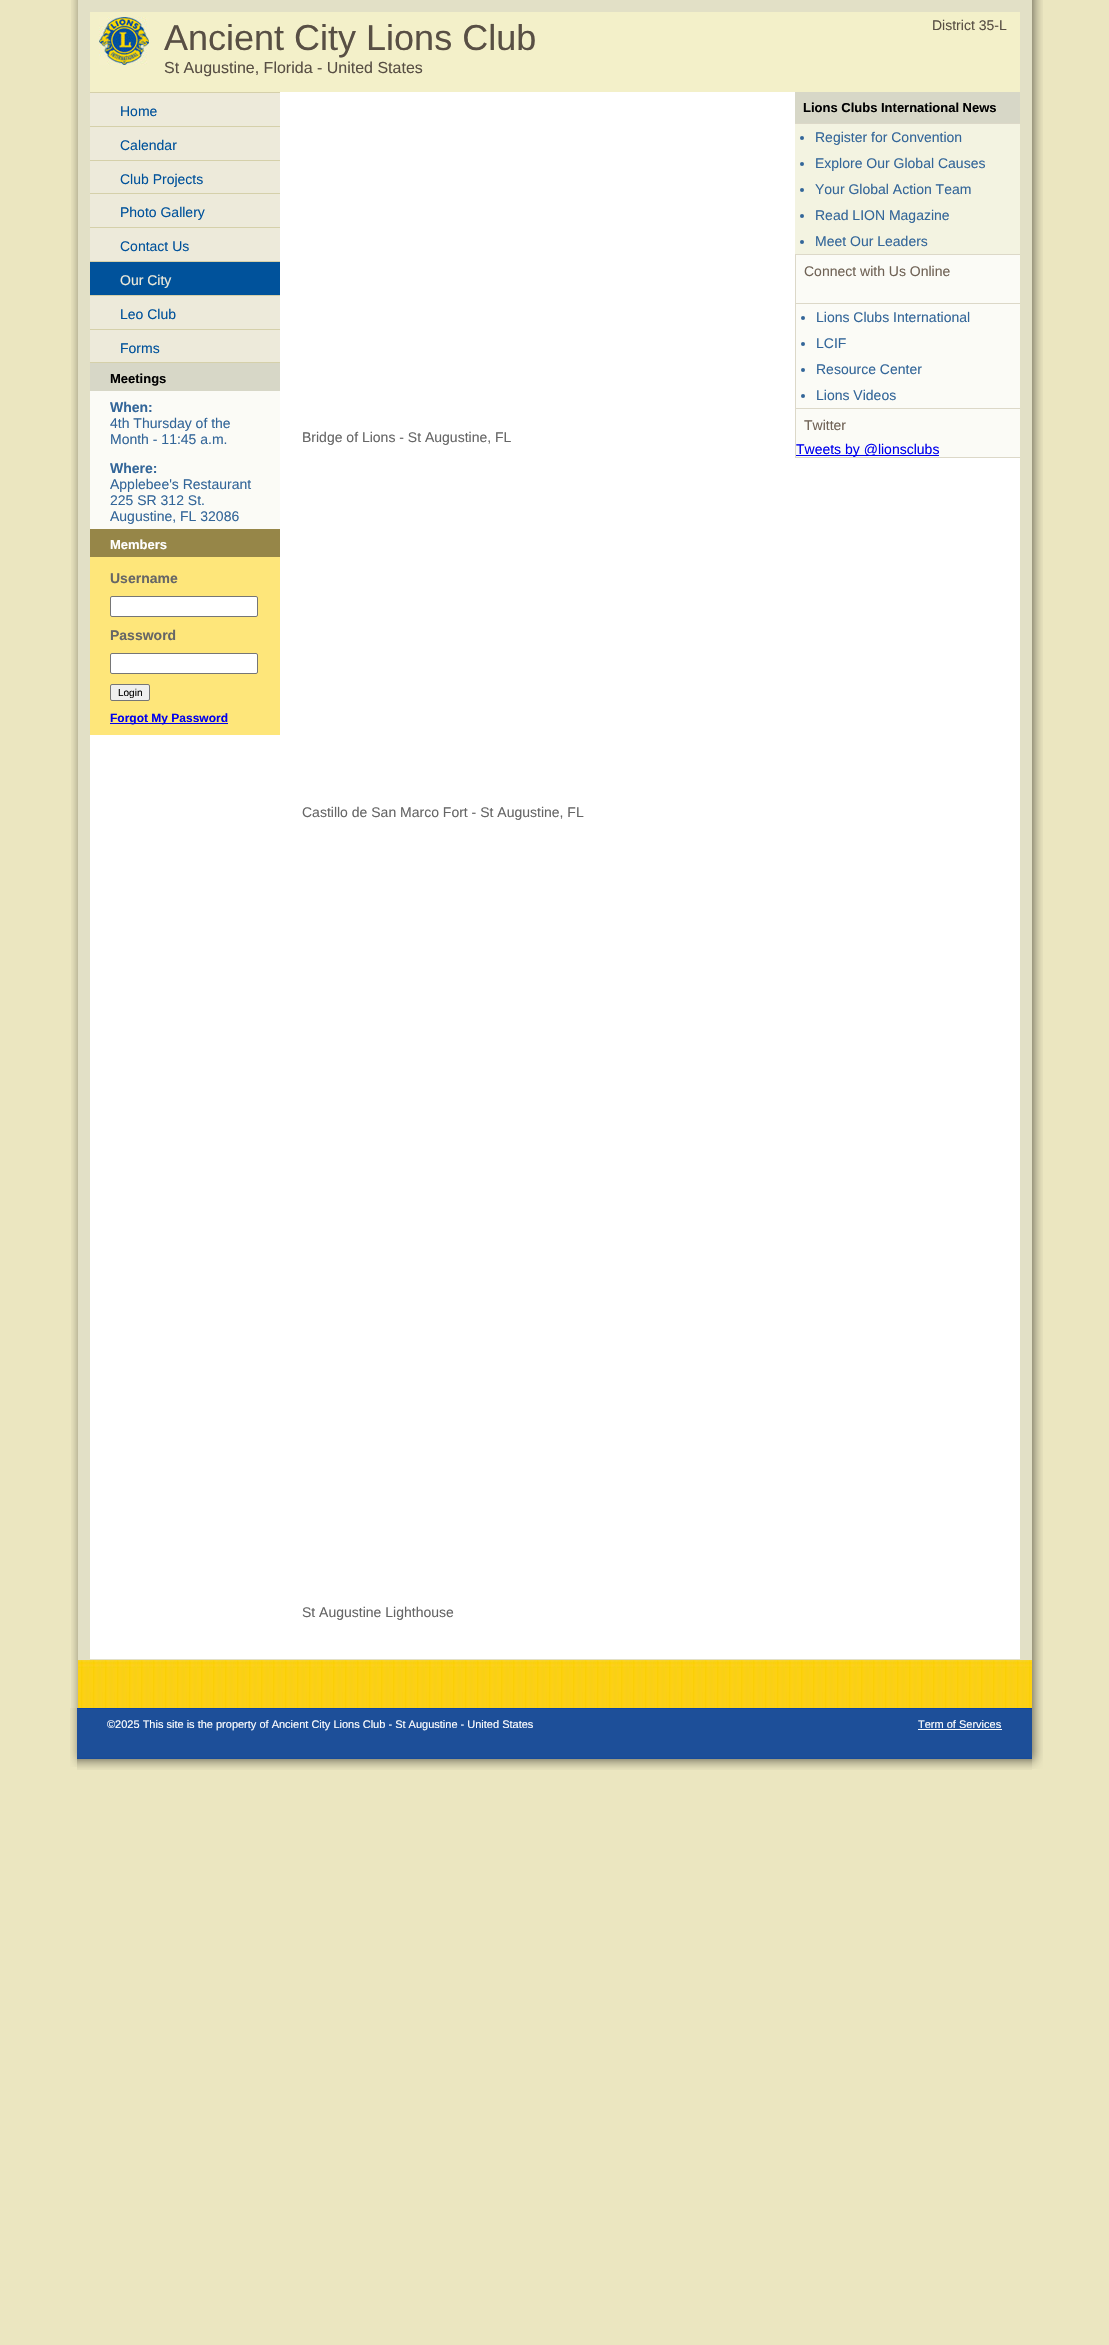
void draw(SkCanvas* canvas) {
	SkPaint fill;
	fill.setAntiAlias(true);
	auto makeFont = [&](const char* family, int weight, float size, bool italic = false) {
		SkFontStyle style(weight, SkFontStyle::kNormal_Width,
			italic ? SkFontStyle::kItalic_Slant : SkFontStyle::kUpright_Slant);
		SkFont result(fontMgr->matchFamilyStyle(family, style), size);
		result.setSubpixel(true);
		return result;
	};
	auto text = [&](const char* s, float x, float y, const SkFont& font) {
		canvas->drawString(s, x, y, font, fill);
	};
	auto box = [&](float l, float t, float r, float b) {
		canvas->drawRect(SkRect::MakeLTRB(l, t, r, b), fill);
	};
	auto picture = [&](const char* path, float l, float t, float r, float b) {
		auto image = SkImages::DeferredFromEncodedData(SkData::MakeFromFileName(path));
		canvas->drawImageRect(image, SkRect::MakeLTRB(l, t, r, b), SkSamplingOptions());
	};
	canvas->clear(0xFFEBE6C0);
	picture("image0.png", 71, 0, 78, 1708);
	fill.setColor(0xFFE2E0C6);
	box(78, 0, 1032, 1660);
	picture("image1.png", 78, 1660, 1032, 1708);
	fill.setColor(0xFFF3F0C9);
	box(90, 12, 1020, 92);
	picture("image2.png", 99, 17, 149, 65);
	fill.setColor(0xFFFFFFFF);
	box(90, 92, 1020, 1659);
	fill.setColor(0xFFD5D0AA);
	box(90, 92, 280, 93);
	box(90, 126, 280, 127);
	fill.setColor(0xFFEDEADA);
	box(90, 93, 280, 126);
	fill.setColor(0xFFD5D0AA);
	box(90, 160, 280, 161);
	fill.setColor(0xFFEDEADA);
	box(90, 127, 280, 160);
	fill.setColor(0xFFD5D0AA);
	box(90, 193, 280, 194);
	fill.setColor(0xFFEDEADA);
	box(90, 161, 280, 193);
	fill.setColor(0xFFD5D0AA);
	box(90, 227, 280, 228);
	fill.setColor(0xFFEDEADA);
	box(90, 194, 280, 227);
	fill.setColor(0xFFD5D0AA);
	box(90, 261, 280, 262);
	fill.setColor(0xFFEDEADA);
	box(90, 228, 280, 261);
	fill.setColor(0xFFD5D0AA);
	box(90, 295, 280, 296);
	fill.setColor(0xFF00529B);
	box(90, 262, 280, 295);
	fill.setColor(0xFFD5D0AA);
	box(90, 329, 280, 330);
	fill.setColor(0xFFEDEADA);
	box(90, 296, 280, 329);
	fill.setColor(0xFFD5D0AA);
	box(90, 362, 280, 363);
	fill.setColor(0xFFEDEADA);
	box(90, 330, 280, 362);
	fill.setColor(0xFFFBFBF6);
	box(90, 391, 280, 529);
	fill.setColor(0xFFD7D7C7);
	box(90, 363, 280, 391);
	fill.setColor(0xFFFEE67A);
	box(90, 557, 280, 735);
	fill.setColor(0xFF968648);
	box(90, 529, 280, 557);
	fill.setColor(0xFFFFFFFF);
	canvas->drawRoundRect(SkRect::MakeLTRB(110.5f, 596.5f, 257.5f, 616.5f), 1.5f, 1.5f, fill);
	fill.setStyle(SkPaint::kStroke_Style);
	fill.setStrokeWidth(1);
	fill.setColor(0xFF767676);
	canvas->drawRoundRect(SkRect::MakeLTRB(110.5f, 596.5f, 257.5f, 616.5f), 1.5f, 1.5f, fill);
	fill.setStyle(SkPaint::kFill_Style);
	fill.setColor(0xFFFFFFFF);
	canvas->drawRoundRect(SkRect::MakeLTRB(110.5f, 653.5f, 257.5f, 673.5f), 1.5f, 1.5f, fill);
	fill.setStyle(SkPaint::kStroke_Style);
	fill.setColor(0xFF767676);
	canvas->drawRoundRect(SkRect::MakeLTRB(110.5f, 653.5f, 257.5f, 673.5f), 1.5f, 1.5f, fill);
	fill.setStyle(SkPaint::kFill_Style);
	fill.setColor(0xFFEFEFEF);
	canvas->drawRoundRect(SkRect::MakeLTRB(110.5f, 684.5f, 149.5f, 700.5f), 1.5f, 1.5f, fill);
	fill.setStyle(SkPaint::kStroke_Style);
	fill.setColor(0xFF767676);
	canvas->drawRoundRect(SkRect::MakeLTRB(110.5f, 684.5f, 149.5f, 700.5f), 1.5f, 1.5f, fill);
	fill.setStyle(SkPaint::kFill_Style);
	fill.setColor(0xFF0000EE);
	box(110, 723, 228, 724);
	fill.setColor(0xFFF3F3E1);
	box(795, 124, 1020, 254);
	fill.setColor(0xFFD7D7C7);
	box(795, 92, 1020, 123);
	fill.setColor(0xFFDCD8C8);
	box(795, 123, 1020, 124);
	fill.setColor(0xFF336699);
	canvas->drawCircle(802, 138, 2, fill);
	canvas->drawCircle(802, 164, 2, fill);
	canvas->drawCircle(802, 190, 2, fill);
	canvas->drawCircle(802, 216, 2, fill);
	canvas->drawCircle(802, 242, 2, fill);
	fill.setColor(0xFFDCD8C8);
	box(795, 254, 1020, 255);
	fill.setColor(0xFFFBFBF6);
	box(796, 255, 1020, 303);
	fill.setColor(0xFFDCD8C8);
	box(795, 255, 796, 303);
	box(795, 303, 1020, 304);
	fill.setColor(0xFFFBFBF6);
	box(796, 304, 1020, 408);
	fill.setColor(0xFFDCD8C8);
	box(795, 304, 796, 408);
	fill.setColor(0xFF336699);
	canvas->drawCircle(803, 318, 2, fill);
	canvas->drawCircle(803, 344, 2, fill);
	canvas->drawCircle(803, 370, 2, fill);
	canvas->drawCircle(803, 396, 2, fill);
	fill.setColor(0xFFDCD8C8);
	box(795, 408, 1020, 409);
	fill.setColor(0xFFFBFBF6);
	box(796, 409, 1020, 457);
	fill.setColor(0xFFDCD8C8);
	box(795, 409, 796, 457);
	fill.setColor(0xFF0000EE);
	box(796, 455, 939, 456);
	fill.setColor(0xFFDCD8C8);
	box(795, 457, 1020, 458);
	picture("image3.png", 1032, 0, 1043, 1708);
	picture("image4.png", 70, 1708, 77, 1767);
	picture("image5.png", 77, 1708, 918, 1770);
	picture("image6.png", 918, 1708, 1032, 1770);
	fill.setColor(0xFFFFFFFF);
	box(918, 1729, 1002, 1730);
	picture("image7.png", 1032, 1708, 1043, 1769);
	auto font1 = makeFont("Liberation Sans", 400, 36);
	fill.setColor(0xFF584F44);
	text("Ancient City Lions Club", 164, 50, font1);
	auto font2 = makeFont("Liberation Sans", 400, 16);
	text("St Augustine, Florida - United States", 164, 73, font2);
	auto font3 = makeFont("Liberation Sans", 400, 14);
	text("District 35-L", 932, 30, font3);
	fill.setColor(0xFF00529B);
	text("Home", 120, 116, font3);
	text("Calendar", 120, 150, font3);
	text("Club Projects", 120, 184, font3);
	text("Photo Gallery", 120, 217, font3);
	text("Contact Us", 120, 251, font3);
	fill.setColor(0xFFEDEADA);
	text("Our City", 120, 285, font3);
	fill.setColor(0xFF00529B);
	text("Leo Club", 120, 319, font3);
	text("Forms", 120, 353, font3);
	auto font4 = makeFont("Liberation Sans", 700, 13);
	fill.setColor(0xFF000000);
	text("Meetings", 110, 383, font4);
	auto font5 = makeFont("Liberation Sans", 700, 14);
	fill.setColor(0xFF336699);
	text("When:", 110, 412, font5);
	text("4th Thursday of the", 110, 428, font3);
	text("Month - 11:45 a.m.", 110, 444, font3);
	text("Where:", 110, 473, font5);
	text("Applebee's Restaurant", 110, 489, font3);
	text("225 SR 312 St.", 110, 505, font3);
	text("Augustine, FL 32086", 110, 521, font3);
	fill.setColor(0xFFFFFFFF);
	text("Members", 110, 549, font4);
	fill.setColor(0xFF666666);
	text("Username", 110, 583, font5);
	text("Password", 110, 640, font5);
	auto font6 = makeFont("Liberation Sans", 400, 10);
	fill.setColor(0xFF000000);
	text("Login", 118, 696, font6);
	auto font7 = makeFont("Liberation Sans", 700, 12);
	fill.setColor(0xFF0000EE);
	text("Forgot My Password", 110, 722, font7);
	fill.setColor(0xFF666666);
	text("Bridge of Lions - St Augustine, FL", 302, 442, font3);
	text("Castillo de San Marco Fort - St Augustine, FL", 302, 817, font3);
	text("St Augustine Lighthouse", 302, 1617, font3);
	fill.setColor(0xFF000000);
	text("Lions Clubs International News", 803, 112, font4);
	fill.setColor(0xFF336699);
	text("Register for Convention", 815, 142, font3);
	text("Explore Our Global Causes", 815, 168, font3);
	text("Your Global Action Team", 815, 194, font3);
	text("Read LION Magazine", 815, 220, font3);
	text("Meet Our Leaders", 815, 246, font3);
	fill.setColor(0xFF706356);
	text("Connect with Us Online", 804, 276, font3);
	fill.setColor(0xFF336699);
	text("Lions Clubs International", 816, 322, font3);
	text("LCIF", 816, 348, font3);
	text("Resource Center", 816, 374, font3);
	text("Lions Videos", 816, 400, font3);
	fill.setColor(0xFF706356);
	text("Twitter", 804, 430, font3);
	fill.setColor(0xFF0000EE);
	text("Tweets by @lionsclubs", 796, 454, font3);
	auto font8 = makeFont("Liberation Sans", 400, 11);
	fill.setColor(0xFFFFFFFF);
	text("©2025 This site is the property of Ancient City Lions Club - St Augustine - United States", 107, 1728, font8);
	text("Term of Services", 918, 1728, font8);
}
